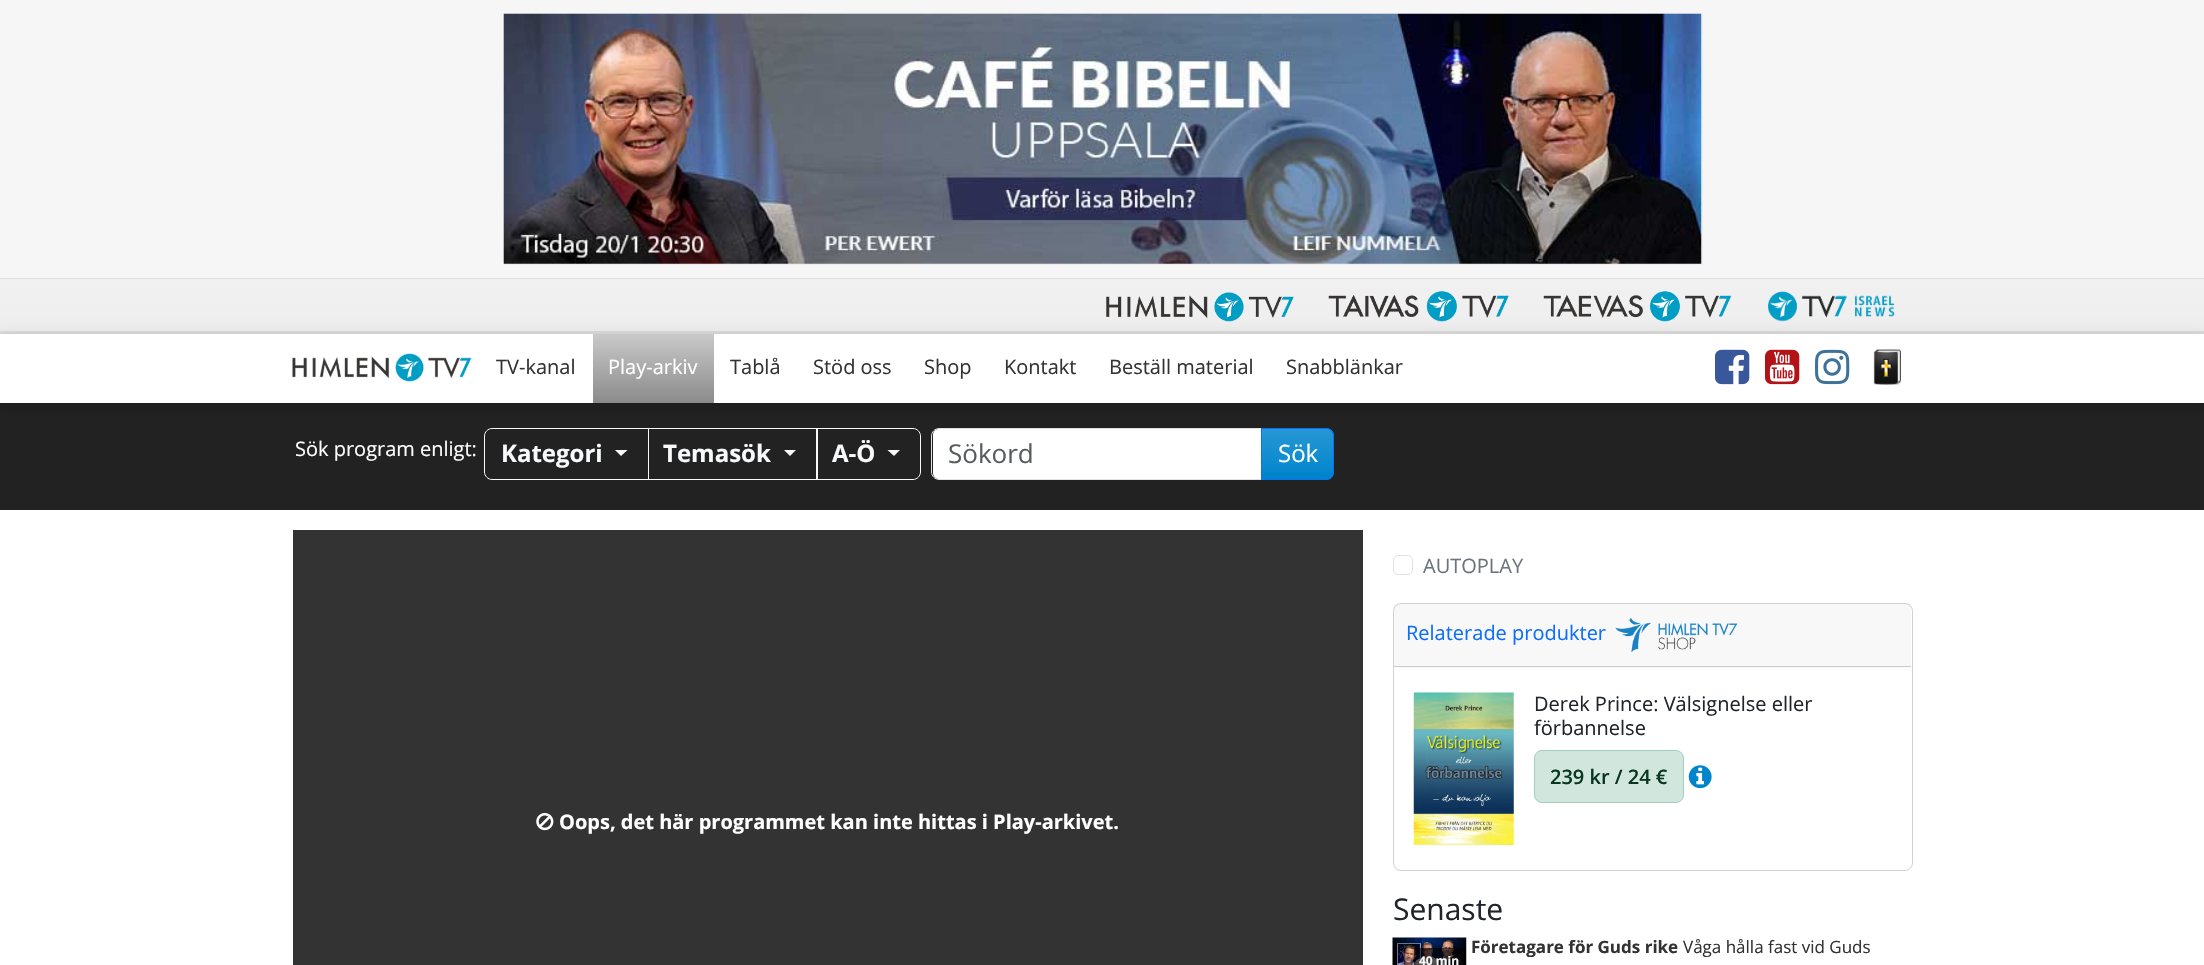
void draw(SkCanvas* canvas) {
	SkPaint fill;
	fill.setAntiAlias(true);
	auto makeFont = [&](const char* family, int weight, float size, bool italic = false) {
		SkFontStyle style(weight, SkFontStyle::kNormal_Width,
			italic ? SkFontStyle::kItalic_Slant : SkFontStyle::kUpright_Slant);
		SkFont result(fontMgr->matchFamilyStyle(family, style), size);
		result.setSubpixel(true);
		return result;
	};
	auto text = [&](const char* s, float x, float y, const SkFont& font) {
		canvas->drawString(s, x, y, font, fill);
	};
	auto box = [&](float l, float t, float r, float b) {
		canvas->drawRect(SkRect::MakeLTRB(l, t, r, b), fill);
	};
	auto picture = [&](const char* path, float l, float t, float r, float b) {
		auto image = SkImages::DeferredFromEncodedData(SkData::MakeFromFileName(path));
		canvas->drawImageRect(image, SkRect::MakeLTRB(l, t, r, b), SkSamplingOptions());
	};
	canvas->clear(0xFFFFFFFF);
	fill.setColor(0xFFF6F6F6);
	box(0, 0, 2204, 278);
	fill.setStyle(SkPaint::kStroke_Style);
	fill.setStrokeWidth(1);
	fill.setColor(0xFFEEEEEE);
	canvas->drawRect(SkRect::MakeLTRB(503.5f, 13.5f, 1702.5f, 264.5f), fill);
	picture("image0.png", 503, 13, 1702, 264);
	fill.setStyle(SkPaint::kFill_Style);
	{
		const SkColor colors[] = {0xFFF1F1F1, 0xFFEEEEEE};
		const float stops[] = {0, 1};
		const SkPoint ends[] = {{1103, 279}, {1103, 331}};
		fill.setShader(SkGradientShader::MakeLinear(ends, colors, stops, 2, SkTileMode::kClamp));
		fill.setAlpha(255);
	}
	box(0, 279, 2204, 331);
	fill.setShader(nullptr);
	fill.setColor(0xFFDDDDDD);
	box(0, 278, 2204, 279);
	box(0, 331, 2204, 334);
	picture("image1.png", 1106, 292, 1294, 322);
	picture("image2.png", 1328, 291, 1509, 322);
	picture("image3.png", 1543, 291, 1732, 322);
	picture("image4.png", 1768, 291, 1895, 322);
	fill.setColor(0xFF222222);
	box(0, 403, 2204, 510);
	canvas->save();
	canvas->clipPath(SkPathBuilder(SkPathFillType::kEvenOdd).moveTo(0, 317).lineTo(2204, 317).lineTo(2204, 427).lineTo(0, 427).close().moveTo(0, 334).lineTo(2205, 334).lineTo(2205, 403).lineTo(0, 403).close().detach(), true);
	fill.setColor(0x26000000);
	fill.setMaskFilter(SkMaskFilter::MakeBlur(kNormal_SkBlurStyle, 6));
	canvas->drawRect(SkRect::MakeLTRB(-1, 336, 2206, 408), fill);
	fill.setMaskFilter(nullptr);
	canvas->restore();
	fill.setColor(0xF2FFFFFF);
	box(0, 402, 2204, 403);
	picture("image5.png", 292, 353, 472, 382);
	{
		const SkColor colors[] = {0xFFC9C9C9, 0xFF8B8B8B};
		const float stops[] = {0, 1};
		const SkPoint ends[] = {{653, 334}, {653, 403}};
		fill.setShader(SkGradientShader::MakeLinear(ends, colors, stops, 2, SkTileMode::kClamp));
		fill.setAlpha(255);
	}
	box(593, 334, 714, 403);
	picture("image6.png", 1715, 349, 1750, 385);
	picture("image7.png", 1765, 349, 1800, 385);
	picture("image8.png", 1815, 349, 1850, 385);
	picture("image9.png", 1873, 349, 1901, 385);
	fill.setStyle(SkPaint::kStroke_Style);
	fill.setShader(nullptr);
	fill.setColor(0xFFF8F9FA);
	canvas->drawPath(SkPathBuilder().moveTo(492, 428.5f).lineTo(648.5f, 428.5f).lineTo(648.5f, 479.5f).lineTo(492, 479.5f).cubicTo(488, 479.5f, 484.5f, 476, 484.5f, 472).lineTo(484.5f, 436).cubicTo(484.5f, 432, 488, 428.5f, 492, 428.5f).close().detach(), fill);
	fill.setStyle(SkPaint::kFill_Style);
	canvas->drawPath(SkPathBuilder().moveTo(615, 450).lineTo(627.5f, 450).lineTo(621, 456).close().detach(), fill);
	fill.setStyle(SkPaint::kStroke_Style);
	canvas->drawRect(SkRect::MakeLTRB(648.5f, 428.5f, 817.5f, 479.5f), fill);
	fill.setStyle(SkPaint::kFill_Style);
	canvas->drawPath(SkPathBuilder().moveTo(784, 450).lineTo(796, 450).lineTo(790, 456).close().detach(), fill);
	fill.setStyle(SkPaint::kStroke_Style);
	canvas->drawPath(SkPathBuilder().moveTo(816.5f, 428.5f).lineTo(913, 428.5f).cubicTo(917, 428.5f, 920.5f, 432, 920.5f, 436).lineTo(920.5f, 472).cubicTo(920.5f, 476, 917, 479.5f, 913, 479.5f).lineTo(816.5f, 479.5f).close().detach(), fill);
	fill.setStyle(SkPaint::kFill_Style);
	canvas->drawPath(SkPathBuilder().moveTo(887.5f, 450).lineTo(900, 450).lineTo(894, 456).close().detach(), fill);
	fill.setColor(0xFFFFFFFF);
	canvas->drawPath(SkPathBuilder().moveTo(939, 429).lineTo(1261, 429).lineTo(1261, 479).lineTo(939, 479).cubicTo(935.5f, 479, 933, 476.5f, 933, 473).lineTo(933, 435).cubicTo(933, 431.5f, 935.5f, 429, 939, 429).close().detach(), fill);
	fill.setStyle(SkPaint::kStroke_Style);
	fill.setColor(0xFFDEE2E6);
	canvas->drawPath(SkPathBuilder().moveTo(939, 428.5f).lineTo(1262.5f, 428.5f).lineTo(1262.5f, 479.5f).lineTo(939, 479.5f).cubicTo(935, 479.5f, 931.5f, 476, 931.5f, 472).lineTo(931.5f, 436).cubicTo(931.5f, 432, 935, 428.5f, 939, 428.5f).close().detach(), fill);
	fill.setStyle(SkPaint::kFill_Style);
	fill.setColor(0xFF0085CD);
	canvas->drawPath(SkPathBuilder().moveTo(1261, 428).lineTo(1326, 428).cubicTo(1330.5f, 428, 1334, 431.5f, 1334, 436).lineTo(1334, 472).cubicTo(1334, 476.5f, 1330.5f, 480, 1326, 480).lineTo(1261, 480).close().detach(), fill);
	canvas->save();
	canvas->clipPath(SkPathBuilder().moveTo(1261, 428).lineTo(1326, 428).cubicTo(1330.5f, 428, 1334, 431.5f, 1334, 436).lineTo(1334, 472).cubicTo(1334, 476.5f, 1330.5f, 480, 1326, 480).lineTo(1261, 480).close().detach(), true);
	{
		const SkColor colors[] = {0x26FFFFFF, 0x00FFFFFF};
		const float stops[] = {0, 1};
		const SkPoint ends[] = {{1298, 429}, {1298, 479}};
		fill.setShader(SkGradientShader::MakeLinear(ends, colors, stops, 2, SkTileMode::kClamp));
		fill.setAlpha(255);
	}
	box(1262, 429, 1334, 472);
	canvas->restore();
	fill.setStyle(SkPaint::kStroke_Style);
	fill.setShader(nullptr);
	fill.setColor(0xFF0D6EFD);
	canvas->drawPath(SkPathBuilder().moveTo(1261.5f, 428.5f).lineTo(1326, 428.5f).cubicTo(1330, 428.5f, 1333.5f, 432, 1333.5f, 436).lineTo(1333.5f, 472).cubicTo(1333.5f, 476, 1330, 479.5f, 1326, 479.5f).lineTo(1261.5f, 479.5f).close().detach(), fill);
	fill.setStyle(SkPaint::kFill_Style);
	fill.setColor(0xFF333333);
	box(293, 530, 1363, 965);
	picture("image10.png", 536, 813, 554, 831);
	fill.setStyle(SkPaint::kStroke_Style);
	fill.setColor(0xFFDEE2E6);
	canvas->drawRoundRect(SkRect::MakeLTRB(1393.5f, 555.5f, 1412.5f, 574.5f), 4.5f, 4.5f, fill);
	fill.setColor(0xFFD2D2D2);
	canvas->drawRoundRect(SkRect::MakeLTRB(1393.5f, 603.5f, 1912.5f, 870.5f), 7.5f, 7.5f, fill);
	fill.setStyle(SkPaint::kFill_Style);
	fill.setColor(0x08212529);
	box(1394, 604, 1911, 668);
	fill.setColor(0xFFCDCDCD);
	box(1394, 666, 1911, 667);
	picture("image11.png", 1615, 618, 1738, 652);
	picture("image12.png", 1413, 692, 1514, 845);
	fill.setColor(0xFFD1E7DD);
	canvas->drawRoundRect(SkRect::MakeLTRB(1534.5f, 750.5f, 1683.5f, 802.5f), 7.5f, 7.5f, fill);
	fill.setStyle(SkPaint::kStroke_Style);
	fill.setColor(0xFFA3CFBB);
	canvas->drawRoundRect(SkRect::MakeLTRB(1534.5f, 750.5f, 1683.5f, 802.5f), 7.5f, 7.5f, fill);
	picture("image13.png", 1688, 765, 1712, 789);
	picture("image14.png", 1392, 937, 1467, 965);
	fill.setStyle(SkPaint::kFill_Style);
	fill.setColor(0x99000000);
	box(1414, 948, 1464, 965);
	auto font1 = makeFont("Open Sans", 400, 20);
	fill.setColor(0xFF333333);
	text("TV-kanal", 496, 374, font1);
	fill.setColor(0xFFFFFFFF);
	text("Play-arkiv", 608, 374, font1);
	fill.setColor(0xFF333333);
	text("Tablå", 730, 374, font1);
	text("Stöd oss", 813, 374, font1);
	text("Shop", 924, 374, font1);
	text("Kontakt", 1004, 374, font1);
	text("Beställ material", 1109, 374, font1);
	text("Snabblänkar", 1286, 374, font1);
	fill.setColor(0xFFFFFFFF);
	text("Sök program enligt:", 295, 456, font1);
	auto font2 = makeFont("Open Sans", 700, 24);
	fill.setColor(0xFFF8F9FA);
	text("Kategori", 501, 462, font2);
	text("Temasök", 663, 462, font2);
	text("A-Ö", 832, 462, font2);
	auto font3 = makeFont("Open Sans", 400, 26);
	fill.setColor(0xFF595C5F);
	text("Sökord", 948, 463, font3);
	auto font4 = makeFont("Open Sans", 400, 24);
	fill.setColor(0xFFFFFFFF);
	text("Sök", 1278, 462, font4);
	auto font5 = makeFont("Open Sans", 700, 20);
	text("Oops, det här programmet kan inte hittas i Play-arkivet.", 559, 829, font5);
	fill.setColor(0xFF6C757D);
	text("AUTOPLAY", 1423, 573, font1);
	fill.setColor(0xFF0D6EFD);
	text("Relaterade produkter", 1406, 640, font1);
	fill.setColor(0xFF212529);
	text("Derek Prince: Välsignelse eller", 1534, 711, font1);
	text("förbannelse", 1534, 735, font1);
	auto font6 = makeFont("Open Sans", 600, 20);
	fill.setColor(0xFF0A3622);
	text("239 kr / 24 €", 1550, 784, font6);
	auto font7 = makeFont("Open Sans", 400, 30);
	fill.setColor(0xFF212529);
	text("Senaste", 1393, 920, font7);
	auto font8 = makeFont("Open Sans", 700, 17);
	fill.setColor(0xFF333333);
	text("Företagare för Guds rike", 1471, 953, font8);
	auto font9 = makeFont("Open Sans", 400, 17);
	text("Våga hålla fast vid Guds", 1683, 953, font9);
	auto font10 = makeFont("Open Sans", 700, 12);
	fill.setColor(0xFFF8F9FA);
	text("40 min", 1419, 965, font10);
}
